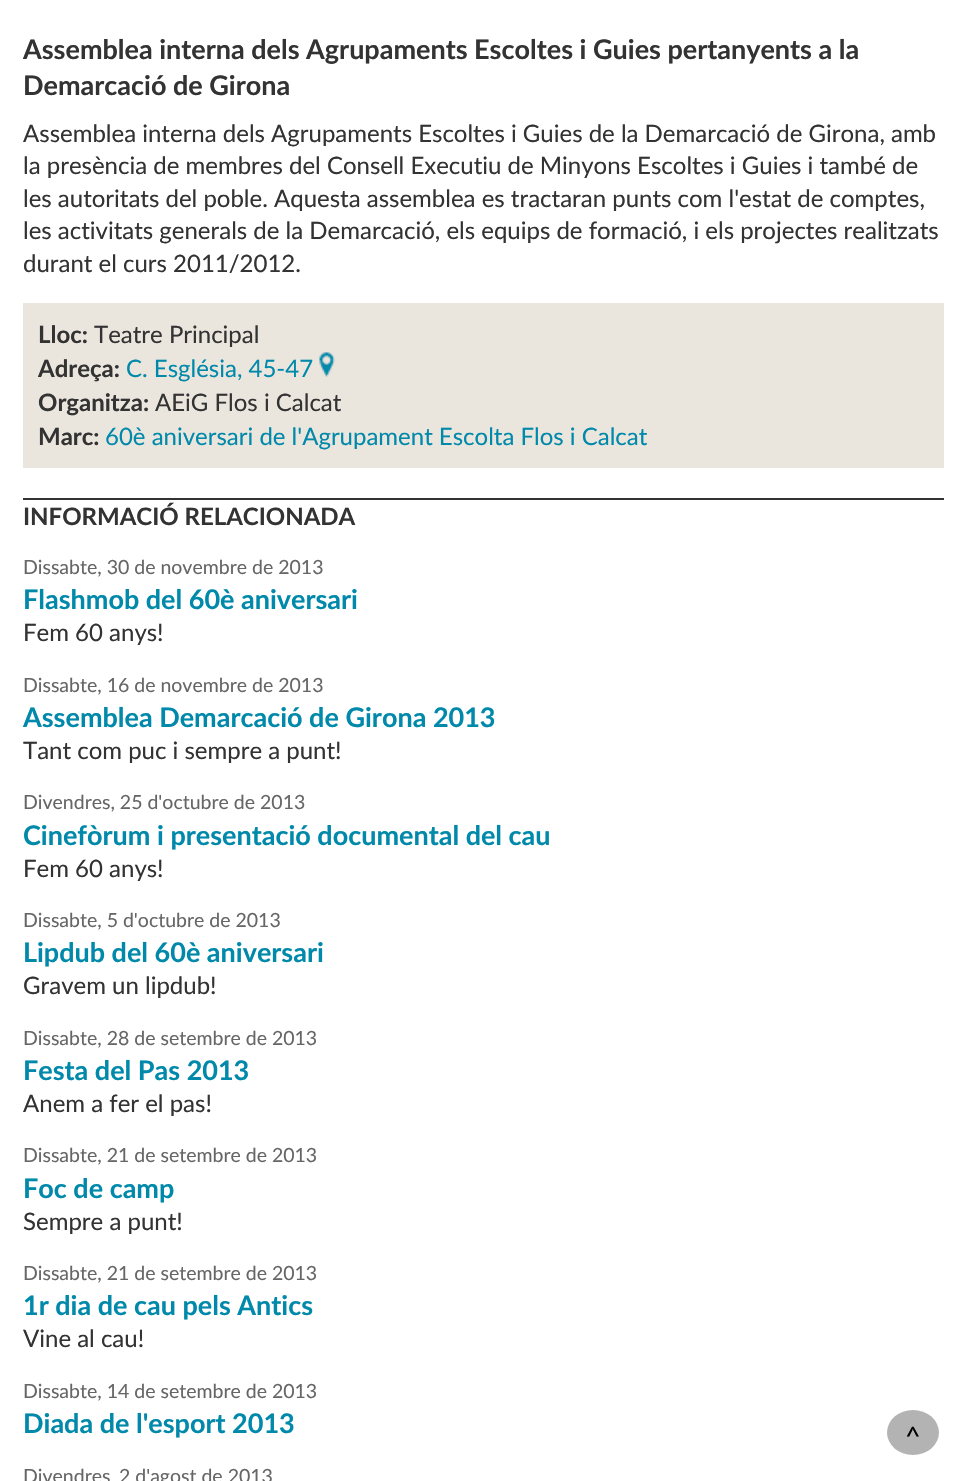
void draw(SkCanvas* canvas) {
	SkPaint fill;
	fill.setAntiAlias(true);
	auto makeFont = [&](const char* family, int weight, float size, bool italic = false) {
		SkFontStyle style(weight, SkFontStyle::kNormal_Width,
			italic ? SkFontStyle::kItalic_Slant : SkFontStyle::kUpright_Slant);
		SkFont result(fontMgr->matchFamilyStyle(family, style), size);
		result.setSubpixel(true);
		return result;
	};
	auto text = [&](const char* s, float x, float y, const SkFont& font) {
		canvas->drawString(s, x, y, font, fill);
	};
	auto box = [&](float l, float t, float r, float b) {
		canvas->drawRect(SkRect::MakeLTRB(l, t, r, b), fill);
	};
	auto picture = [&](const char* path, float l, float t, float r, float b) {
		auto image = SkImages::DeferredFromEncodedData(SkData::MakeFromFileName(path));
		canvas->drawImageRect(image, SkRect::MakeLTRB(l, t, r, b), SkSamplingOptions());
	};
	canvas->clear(0xFFFFFFFF);
	fill.setColor(0xFFEAE5DD);
	box(23, 303, 944, 468);
	picture("image0.png", 319, 352, 335, 377);
	fill.setColor(0xFF333333);
	box(23, 498, 944, 500);
	fill.setColor(0xFFB3B3B3);
	canvas->drawOval(SkRect::MakeLTRB(887, 1410, 939, 1455), fill);
	auto font1 = makeFont("Lato", 700, 27);
	fill.setColor(0xFF333333);
	text("Assemblea interna dels Agrupaments Escoltes i Guies pertanyents a la", 23, 59, font1);
	text("Demarcació de Girona", 23, 95, font1);
	auto font2 = makeFont("Lato", 400, 24);
	text("Assemblea interna dels Agrupaments Escoltes i Guies de la Demarcació de Girona, amb", 23, 142, font2);
	text("la presència de membres del Consell Executiu de Minyons Escoltes i Guies i també de", 23, 174, font2);
	text("les autoritats del poble. Aquesta assemblea es tractaran punts com l'estat de comptes,", 23, 207, font2);
	text("les activitats generals de la Demarcació, els equips de formació, i els projectes realitzats", 23, 239, font2);
	text("durant el curs 2011/2012.", 23, 272, font2);
	auto font3 = makeFont("Lato", 700, 24);
	text("Lloc:", 38, 343, font3);
	text("Teatre Principal", 94, 343, font2);
	text("Adreça:", 38, 377, font3);
	fill.setColor(0xFF0089AA);
	text("C. Església, 45-47", 126, 377, font2);
	fill.setColor(0xFF333333);
	text("Organitza:", 38, 411, font3);
	text("AEiG Flos i Calcat", 155, 411, font2);
	text("Marc:", 38, 445, font3);
	fill.setColor(0xFF0089AA);
	text("60è aniversari de l'Agrupament Escolta Flos i Calcat", 105, 445, font2);
	fill.setColor(0xFF333333);
	text("INFORMACIÓ RELACIONADA", 23, 525, font3);
	auto font4 = makeFont("Lato", 400, 19.5f);
	fill.setColor(0xFF666666);
	text("Dissabte, 30 de novembre de 2013", 23, 574, font4);
	fill.setColor(0xFF0089AA);
	text("Flashmob del 60è aniversari", 23, 609, font1);
	fill.setColor(0xFF333333);
	text("Fem 60 anys!", 23, 641, font2);
	fill.setColor(0xFF666666);
	text("Dissabte, 16 de novembre de 2013", 23, 692, font4);
	fill.setColor(0xFF0089AA);
	text("Assemblea Demarcació de Girona 2013", 23, 727, font1);
	fill.setColor(0xFF333333);
	text("Tant com puc i sempre a punt!", 23, 759, font2);
	fill.setColor(0xFF666666);
	text("Divendres, 25 d'octubre de 2013", 23, 809, font4);
	fill.setColor(0xFF0089AA);
	text("Cinefòrum i presentació documental del cau", 23, 845, font1);
	fill.setColor(0xFF333333);
	text("Fem 60 anys!", 23, 877, font2);
	fill.setColor(0xFF666666);
	text("Dissabte, 5 d'octubre de 2013", 23, 927, font4);
	fill.setColor(0xFF0089AA);
	text("Lipdub del 60è aniversari", 23, 962, font1);
	fill.setColor(0xFF333333);
	text("Gravem un lipdub!", 23, 994, font2);
	fill.setColor(0xFF666666);
	text("Dissabte, 28 de setembre de 2013", 23, 1045, font4);
	fill.setColor(0xFF0089AA);
	text("Festa del Pas 2013", 23, 1080, font1);
	fill.setColor(0xFF333333);
	text("Anem a fer el pas!", 23, 1112, font2);
	fill.setColor(0xFF666666);
	text("Dissabte, 21 de setembre de 2013", 23, 1162, font4);
	fill.setColor(0xFF0089AA);
	text("Foc de camp", 23, 1198, font1);
	fill.setColor(0xFF333333);
	text("Sempre a punt!", 23, 1230, font2);
	fill.setColor(0xFF666666);
	text("Dissabte, 21 de setembre de 2013", 23, 1280, font4);
	fill.setColor(0xFF0089AA);
	text("1r dia de cau pels Antics", 23, 1315, font1);
	fill.setColor(0xFF333333);
	text("Vine al cau!", 23, 1347, font2);
	fill.setColor(0xFF666666);
	text("Dissabte, 14 de setembre de 2013", 23, 1398, font4);
	fill.setColor(0xFF0089AA);
	text("Diada de l'esport 2013", 23, 1433, font1);
	fill.setColor(0xFF666666);
	text("Divendres", 23, 1483, font4);
	text("2 d'agost de 2013", 119, 1483, font4);
	auto font5 = makeFont("Lato", 400, 27);
	fill.setColor(0xFF000000);
	text("^", 905, 1446, font5);
}
